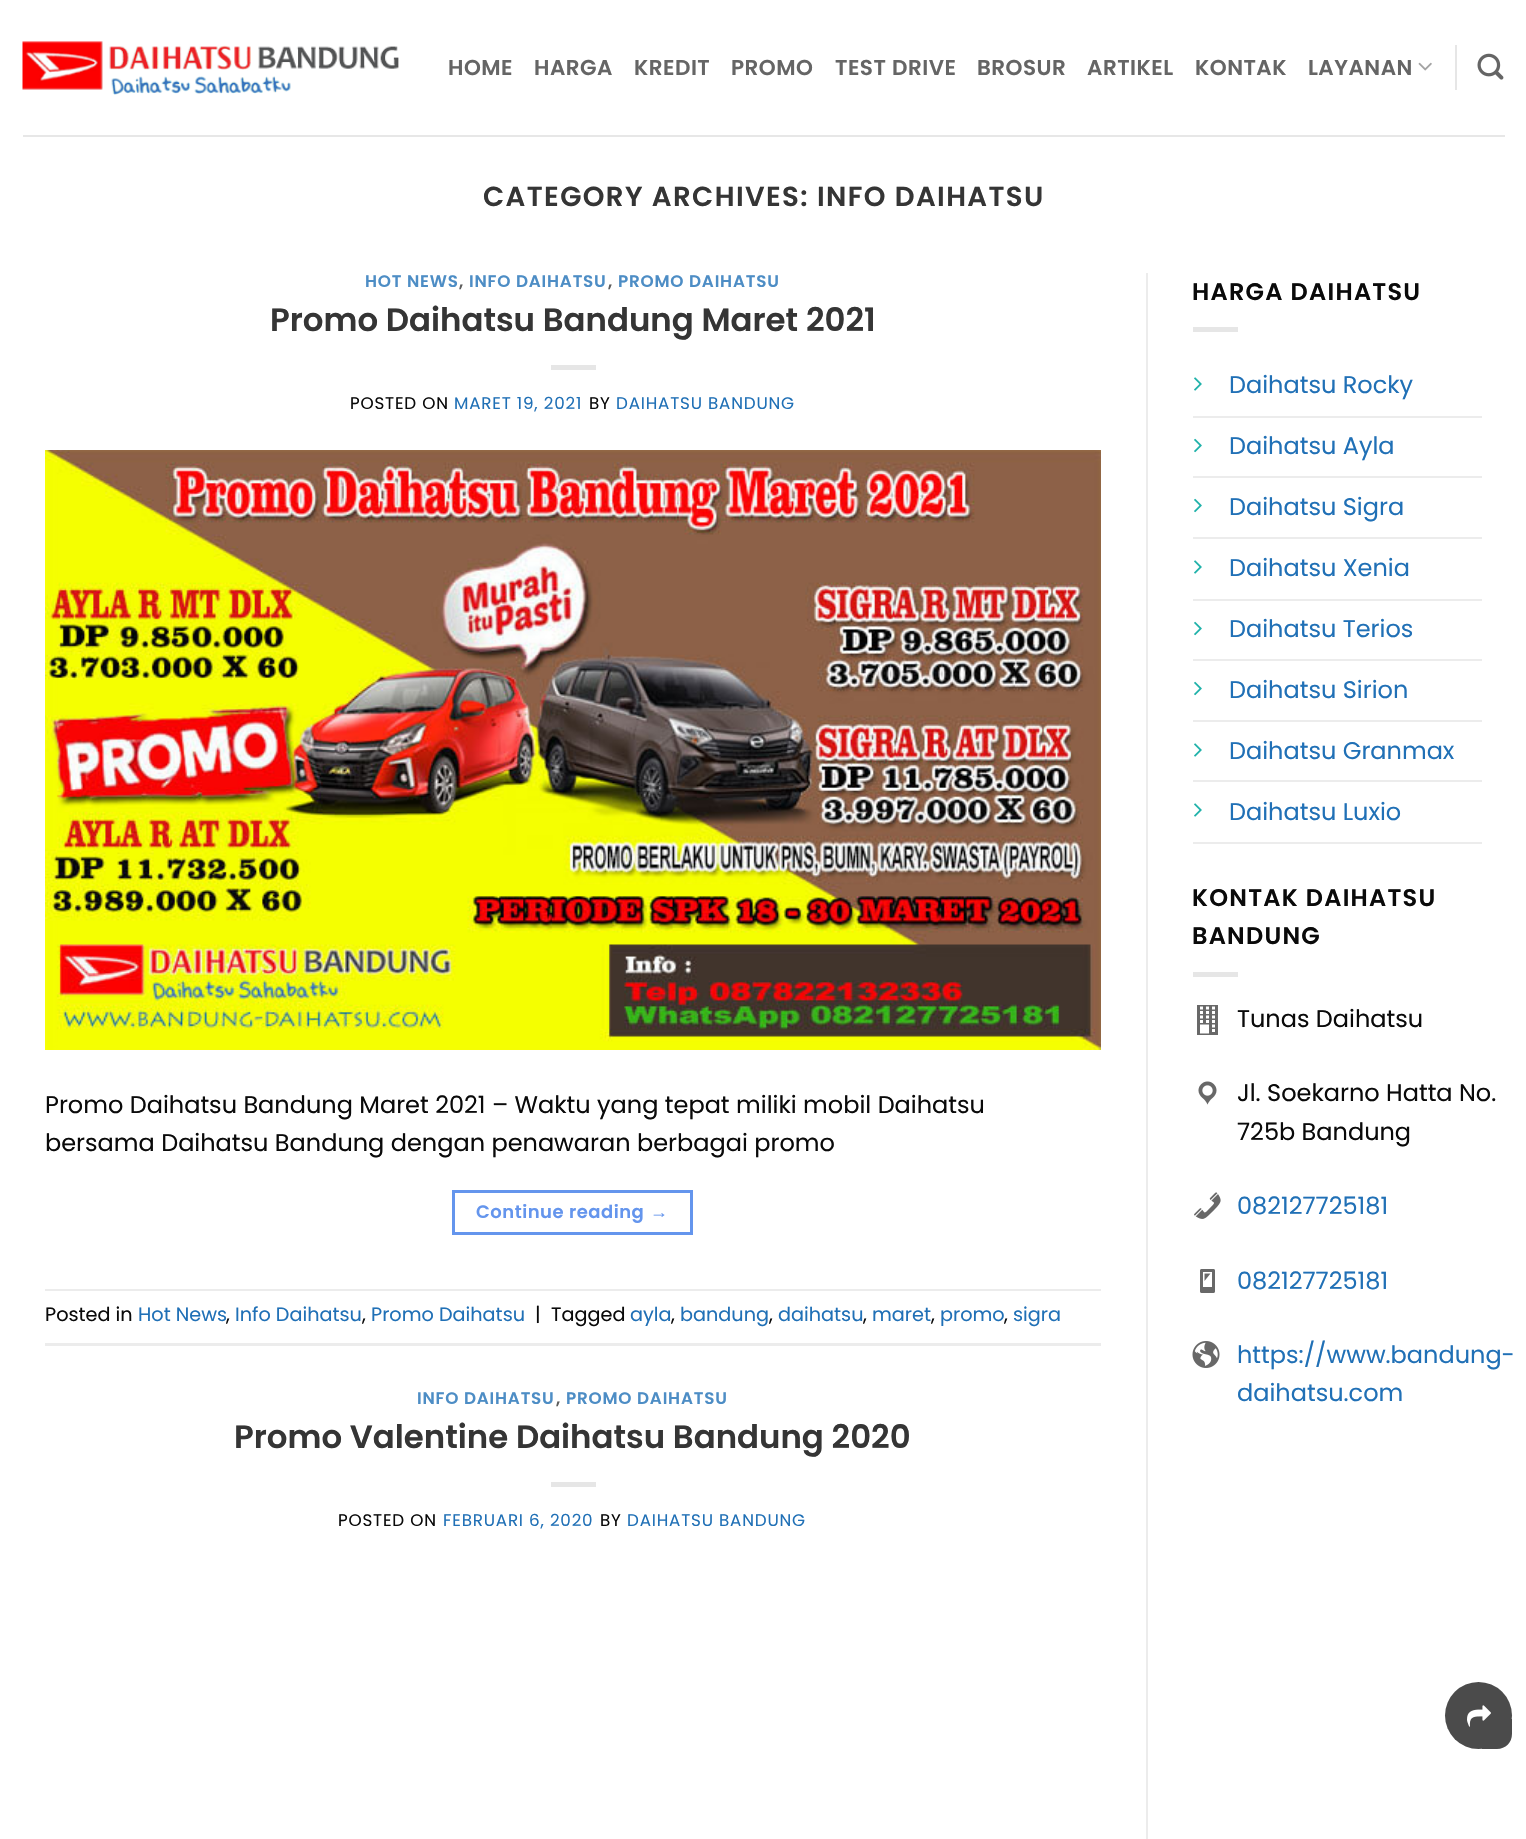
void draw(SkCanvas* canvas) {
	SkPaint fill;
	fill.setAntiAlias(true);
	auto makeFont = [&](const char* family, int weight, float size, bool italic = false) {
		SkFontStyle style(weight, SkFontStyle::kNormal_Width,
			italic ? SkFontStyle::kItalic_Slant : SkFontStyle::kUpright_Slant);
		SkFont result(fontMgr->matchFamilyStyle(family, style), size);
		result.setSubpixel(true);
		return result;
	};
	auto text = [&](const char* s, float x, float y, const SkFont& font) {
		canvas->drawString(s, x, y, font, fill);
	};
	auto spacedText = [&](const char* s, float x, float y, const SkFont& font, const SkPaint& ink, float letter, float word) {
		std::vector<SkGlyphID> glyphs(font.countText(s, strlen(s), SkTextEncoding::kUTF8));
		std::vector<float> xs(glyphs.size());
		font.textToGlyphs(s, strlen(s), SkTextEncoding::kUTF8, glyphs);
		font.getXPos(glyphs, xs, x);
		float extra = 0;
		for (size_t i = 0; i < glyphs.size(); i++) {
			xs[i] += extra;
			extra += letter + word * (glyphs[i] == font.unicharToGlyph(' '));
		}
		canvas->drawTextBlob(SkTextBlob::MakeFromPosHGlyphs(glyphs, xs, y, font), 0, 0, ink);
	};
	auto box = [&](float l, float t, float r, float b) {
		canvas->drawRect(SkRect::MakeLTRB(l, t, r, b), fill);
	};
	auto picture = [&](const char* path, float l, float t, float r, float b) {
		auto image = SkImages::DeferredFromEncodedData(SkData::MakeFromFileName(path));
		canvas->drawImageRect(image, SkRect::MakeLTRB(l, t, r, b), SkSamplingOptions());
	};
	canvas->clear(0xFFFFFFFF);
	picture("image0.png", 22, 41, 399, 95);
	picture("image1.png", 1418, 62, 1432, 71);
	fill.setColor(0xFFE6E6E6);
	box(1455, 45, 1457, 90);
	picture("image2.png", 1477, 53, 1504, 80);
	fill.setColor(0xFFE7E7E7);
	box(23, 135, 1505, 137);
	fill.setColor(0xFFE6E6E6);
	box(551, 365, 596, 370);
	picture("image3.png", 45, 450, 1101, 1050);
	fill.setStyle(SkPaint::kStroke_Style);
	fill.setStrokeWidth(3);
	fill.setColor(0xFF6495ED);
	canvas->drawRect(SkRect::MakeLTRB(453.5f, 1191.5f, 691.5f, 1233.5f), fill);
	fill.setStyle(SkPaint::kFill_Style);
	fill.setColor(0xFFECECEC);
	box(45, 1289, 1101, 1291);
	box(45, 1343, 1101, 1346);
	fill.setColor(0xFFE6E6E6);
	box(551, 1482, 596, 1487);
	fill.setColor(0xFFECECEC);
	box(1146, 273, 1148, 1839);
	fill.setColor(0xFFE6E6E6);
	box(1193, 327, 1238, 332);
	fill.setColor(0xFFECECEC);
	box(1193, 416, 1482, 418);
	picture("image4.png", 1194, 377, 1202, 391);
	box(1193, 476, 1482, 478);
	picture("image5.png", 1194, 438, 1202, 453);
	box(1193, 537, 1482, 539);
	picture("image5.png", 1194, 498, 1202, 513);
	box(1193, 599, 1482, 601);
	picture("image4.png", 1194, 560, 1202, 574);
	box(1193, 659, 1482, 661);
	picture("image5.png", 1194, 621, 1202, 636);
	box(1193, 720, 1482, 722);
	picture("image5.png", 1194, 681, 1202, 696);
	box(1193, 780, 1482, 782);
	picture("image4.png", 1194, 743, 1202, 757);
	box(1193, 842, 1482, 844);
	picture("image4.png", 1194, 803, 1202, 817);
	fill.setColor(0xFFE6E6E6);
	box(1193, 972, 1238, 977);
	picture("image6.png", 1197, 1005, 1218, 1035);
	picture("image7.png", 1198, 1081, 1217, 1105);
	picture("image8.png", 1194, 1192, 1221, 1219);
	picture("image9.png", 1200, 1269, 1215, 1293);
	picture("image10.png", 1192, 1341, 1220, 1368);
	fill.setColor(0xFF4B4B4B);
	canvas->drawCircle(1478.5f, 1715.5f, 33.5f, fill);
	canvas->drawPath(SkPathBuilder().moveTo(1482, 1719).lineTo(1512, 1719).lineTo(1512, 1734).cubicTo(1512, 1742.5f, 1505.5f, 1749, 1497, 1749).lineTo(1482, 1749).close().detach(), fill);
	picture("image11.png", 1467, 1705, 1491, 1727);
	auto font1 = makeFont("Poppins", 600, 21.5f);
	fill.setColor(0xFF656565);
	spacedText("HOME", 448, 75, font1, fill, 0.5f, 0);
	spacedText("HARGA", 534, 75, font1, fill, 0.5f, 0);
	spacedText("KREDIT", 634, 75, font1, fill, 0.5f, 0);
	spacedText("PROMO", 731, 75, font1, fill, 0.5f, 0);
	spacedText("TEST DRIVE", 835, 75, font1, fill, 0.5f, 0);
	spacedText("BROSUR", 977, 75, font1, fill, 0.5f, 0);
	spacedText("ARTIKEL", 1087, 75, font1, fill, 0.5f, 0);
	spacedText("KONTAK", 1195, 75, font1, fill, 0.5f, 0);
	spacedText("LAYANAN", 1308, 75, font1, fill, 0.5f, 0);
	auto font2 = makeFont("Poppins", 600, 27.6f);
	fill.setColor(0xFF353535);
	spacedText("CATEGORY ARCHIVES: INFO DAIHATSU", 483, 206, font2, fill, 1.4f, 0);
	auto font3 = makeFont("Poppins", 600, 16.75f);
	fill.setColor(0xFF4D8DC5);
	spacedText("HOT NEWS", 365, 287, font3, fill, 0.8f, 0);
	fill.setColor(0xFF5D5D5D);
	spacedText(",", 459, 287, font3, fill, 0.8f, 0);
	fill.setColor(0xFF4D8DC5);
	spacedText("INFO DAIHATSU", 469, 287, font3, fill, 0.8f, 0);
	fill.setColor(0xFF5D5D5D);
	spacedText(",", 608, 287, font3, fill, 0.8f, 0);
	fill.setColor(0xFF4D8DC5);
	spacedText("PROMO DAIHATSU", 618, 287, font3, fill, 0.8f, 0);
	auto font4 = makeFont("Poppins", 600, 32.4f);
	fill.setColor(0xFF353535);
	text("Promo Daihatsu Bandung Maret 2021", 270, 331, font4);
	auto font5 = makeFont("Poppins", 400, 16.75f);
	fill.setColor(0xFF0A0A0A);
	spacedText("POSTED ON", 350, 409, font5, fill, 0.8f, 0);
	fill.setColor(0xFF2070B6);
	spacedText("MARET 19, 2021", 454, 409, font5, fill, 0.8f, 0);
	fill.setColor(0xFF0A0A0A);
	spacedText("BY", 589, 409, font5, fill, 0.8f, 0);
	fill.setColor(0xFF2070B6);
	spacedText("DAIHATSU BANDUNG", 616, 409, font5, fill, 0.8f, 0);
	auto font6 = makeFont("Poppins", 400, 24);
	fill.setColor(0xFF0A0A0A);
	text("Promo Daihatsu Bandung Maret 2021 – Waktu yang tepat miliki mobil Daihatsu", 45, 1113, font6);
	text("bersama Daihatsu Bandung dengan penawaran berbagai promo", 45, 1151, font6);
	auto font7 = makeFont("Poppins", 600, 18);
	fill.setColor(0xFF6495ED);
	spacedText("Continue reading", 476, 1218, font7, fill, 0.5f, 0);
	auto font8 = makeFont("Liberation Sans", 700, 18);
	spacedText("→", 650, 1218, font8, fill, 0.5f, 0);
	auto font9 = makeFont("Poppins", 400, 19.25f);
	fill.setColor(0xFF0A0A0A);
	text("Posted in", 45, 1321, font9);
	fill.setColor(0xFF2070B6);
	text("Hot News", 138, 1321, font9);
	fill.setColor(0xFF0A0A0A);
	text(",", 226, 1321, font9);
	fill.setColor(0xFF2070B6);
	text("Info Daihatsu", 235, 1321, font9);
	fill.setColor(0xFF0A0A0A);
	text(",", 362, 1321, font9);
	fill.setColor(0xFF2070B6);
	text("Promo Daihatsu", 371, 1321, font9);
	fill.setColor(0xFF0A0A0A);
	text("|", 535, 1321, font9);
	text("Tagged", 551, 1321, font9);
	fill.setColor(0xFF2070B6);
	text("ayla", 630, 1321, font9);
	fill.setColor(0xFF0A0A0A);
	text(",", 671, 1321, font9);
	fill.setColor(0xFF2070B6);
	text("bandung", 680, 1321, font9);
	fill.setColor(0xFF0A0A0A);
	text(",", 769, 1321, font9);
	fill.setColor(0xFF2070B6);
	text("daihatsu", 778, 1321, font9);
	fill.setColor(0xFF0A0A0A);
	text(",", 863, 1321, font9);
	fill.setColor(0xFF2070B6);
	text("maret", 872, 1321, font9);
	fill.setColor(0xFF0A0A0A);
	text(",", 931, 1321, font9);
	fill.setColor(0xFF2070B6);
	text("promo", 940, 1321, font9);
	fill.setColor(0xFF0A0A0A);
	text(",", 1004, 1321, font9);
	fill.setColor(0xFF2070B6);
	text("sigra", 1013, 1321, font9);
	fill.setColor(0xFF4D8DC5);
	spacedText("INFO DAIHATSU", 417, 1404, font3, fill, 0.8f, 0);
	fill.setColor(0xFF5D5D5D);
	spacedText(",", 556, 1404, font3, fill, 0.8f, 0);
	fill.setColor(0xFF4D8DC5);
	spacedText("PROMO DAIHATSU", 566, 1404, font3, fill, 0.8f, 0);
	fill.setColor(0xFF353535);
	text("Promo Valentine Daihatsu Bandung 2020", 234, 1448, font4);
	fill.setColor(0xFF0A0A0A);
	spacedText("POSTED ON", 338, 1526, font5, fill, 0.8f, 0);
	fill.setColor(0xFF2070B6);
	spacedText("FEBRUARI 6, 2020", 443, 1526, font5, fill, 0.8f, 0);
	fill.setColor(0xFF0A0A0A);
	spacedText("BY", 600, 1526, font5, fill, 0.8f, 0);
	fill.setColor(0xFF2070B6);
	spacedText("DAIHATSU BANDUNG", 627, 1526, font5, fill, 0.8f, 0);
	auto font10 = makeFont("Poppins", 600, 24);
	fill.setColor(0xFF0A0A0A);
	spacedText("HARGA DAIHATSU", 1192, 300, font10, fill, 1.25f, 0);
	fill.setColor(0xFF2070B6);
	text("Daihatsu Rocky", 1229, 393, font6);
	text("Daihatsu Ayla", 1229, 454, font6);
	text("Daihatsu Sigra", 1229, 515, font6);
	text("Daihatsu Xenia", 1229, 576, font6);
	text("Daihatsu Terios", 1229, 637, font6);
	text("Daihatsu Sirion", 1229, 698, font6);
	text("Daihatsu Granmax", 1229, 759, font6);
	text("Daihatsu Luxio", 1229, 820, font6);
	fill.setColor(0xFF0A0A0A);
	spacedText("KONTAK DAIHATSU", 1192, 906, font10, fill, 1.25f, 0);
	spacedText("BANDUNG", 1192, 944, font10, fill, 1.25f, 0);
	text("Tunas Daihatsu", 1237, 1027, font6);
	text("Jl. Soekarno Hatta No.", 1237, 1101, font6);
	text("725b Bandung", 1237, 1140, font6);
	fill.setColor(0xFF2070B6);
	text("082127725181", 1237, 1214, font6);
	text("082127725181", 1237, 1289, font6);
	text("https://www.bandung-", 1237, 1363, font6);
	text("daihatsu.com", 1237, 1401, font6);
}
